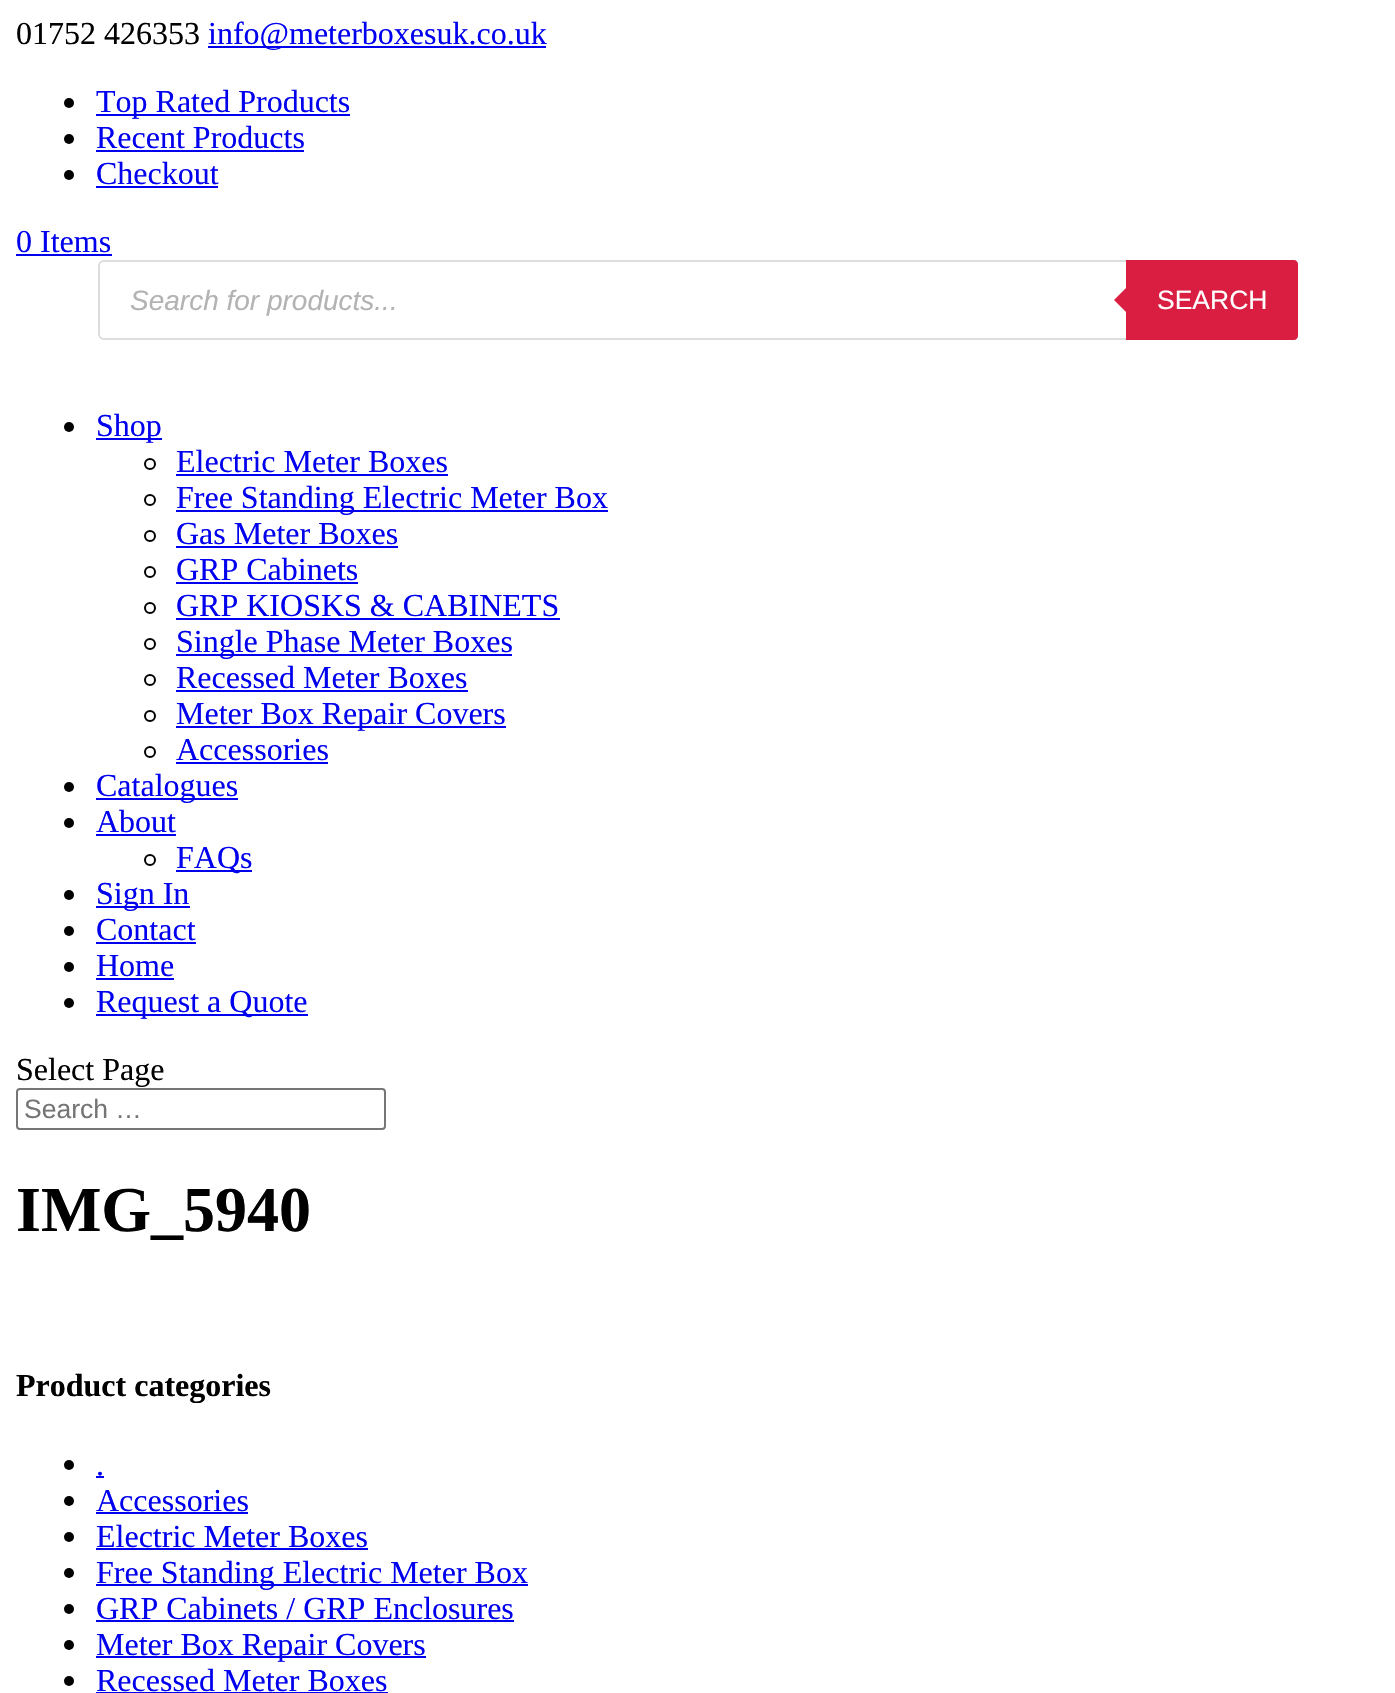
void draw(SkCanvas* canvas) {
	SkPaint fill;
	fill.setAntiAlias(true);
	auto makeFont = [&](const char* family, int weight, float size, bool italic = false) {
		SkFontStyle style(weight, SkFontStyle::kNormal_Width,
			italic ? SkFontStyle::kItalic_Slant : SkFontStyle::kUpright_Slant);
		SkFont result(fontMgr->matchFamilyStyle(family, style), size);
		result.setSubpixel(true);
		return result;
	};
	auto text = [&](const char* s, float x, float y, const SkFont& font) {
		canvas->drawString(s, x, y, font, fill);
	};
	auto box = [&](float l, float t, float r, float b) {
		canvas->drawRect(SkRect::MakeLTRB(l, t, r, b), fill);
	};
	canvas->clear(0xFFFFFFFF);
	fill.setColor(0xFF0000EE);
	box(208, 46, 546, 48);
	fill.setColor(0xFF000000);
	canvas->drawCircle(69, 103, 5, fill);
	fill.setColor(0xFF0000EE);
	box(96, 114, 350, 116);
	fill.setColor(0xFF000000);
	canvas->drawCircle(69, 139, 5, fill);
	fill.setColor(0xFF0000EE);
	box(96, 150, 304, 152);
	fill.setColor(0xFF000000);
	canvas->drawCircle(69, 175, 5, fill);
	fill.setColor(0xFF0000EE);
	box(96, 186, 218, 188);
	box(16, 254, 112, 256);
	fill.setStyle(SkPaint::kStroke_Style);
	fill.setStrokeWidth(2);
	fill.setColor(0xFFDDDDDD);
	canvas->drawRoundRect(SkRect::MakeLTRB(99, 261, 1297, 339), 5, 5, fill);
	fill.setStyle(SkPaint::kFill_Style);
	fill.setColor(0xFFD91E41);
	canvas->drawPath(SkPathBuilder().moveTo(1126, 260).lineTo(1294, 260).cubicTo(1296, 260, 1298, 262, 1298, 264).lineTo(1298, 336).cubicTo(1298, 338, 1296, 340, 1294, 340).lineTo(1126, 340).close().detach(), fill);
	canvas->drawPath(SkPathBuilder().moveTo(1130, 284).lineTo(1130, 316).lineTo(1114, 300).close().detach(), fill);
	fill.setColor(0xFF000000);
	canvas->drawCircle(69, 427, 5, fill);
	fill.setColor(0xFF0000EE);
	box(96, 438, 162, 440);
	fill.setStyle(SkPaint::kStroke_Style);
	fill.setColor(0xFF000000);
	canvas->drawCircle(150, 464, 5, fill);
	fill.setStyle(SkPaint::kFill_Style);
	fill.setColor(0xFF0000EE);
	box(176, 474, 448, 476);
	fill.setStyle(SkPaint::kStroke_Style);
	fill.setColor(0xFF000000);
	canvas->drawCircle(150, 500, 5, fill);
	fill.setStyle(SkPaint::kFill_Style);
	fill.setColor(0xFF0000EE);
	box(176, 510, 608, 512);
	fill.setStyle(SkPaint::kStroke_Style);
	fill.setColor(0xFF000000);
	canvas->drawCircle(150, 536, 5, fill);
	fill.setStyle(SkPaint::kFill_Style);
	fill.setColor(0xFF0000EE);
	box(176, 546, 398, 548);
	fill.setStyle(SkPaint::kStroke_Style);
	fill.setColor(0xFF000000);
	canvas->drawCircle(150, 572, 5, fill);
	fill.setStyle(SkPaint::kFill_Style);
	fill.setColor(0xFF0000EE);
	box(176, 582, 358, 584);
	fill.setStyle(SkPaint::kStroke_Style);
	fill.setColor(0xFF000000);
	canvas->drawCircle(150, 608, 5, fill);
	fill.setStyle(SkPaint::kFill_Style);
	fill.setColor(0xFF0000EE);
	box(176, 618, 560, 620);
	fill.setStyle(SkPaint::kStroke_Style);
	fill.setColor(0xFF000000);
	canvas->drawCircle(150, 644, 5, fill);
	fill.setStyle(SkPaint::kFill_Style);
	fill.setColor(0xFF0000EE);
	box(176, 654, 512, 656);
	fill.setStyle(SkPaint::kStroke_Style);
	fill.setColor(0xFF000000);
	canvas->drawCircle(150, 680, 5, fill);
	fill.setStyle(SkPaint::kFill_Style);
	fill.setColor(0xFF0000EE);
	box(176, 690, 468, 692);
	fill.setStyle(SkPaint::kStroke_Style);
	fill.setColor(0xFF000000);
	canvas->drawCircle(150, 716, 5, fill);
	fill.setStyle(SkPaint::kFill_Style);
	fill.setColor(0xFF0000EE);
	box(176, 726, 506, 728);
	fill.setStyle(SkPaint::kStroke_Style);
	fill.setColor(0xFF000000);
	canvas->drawCircle(150, 752, 5, fill);
	fill.setStyle(SkPaint::kFill_Style);
	fill.setColor(0xFF0000EE);
	box(176, 762, 328, 764);
	fill.setColor(0xFF000000);
	canvas->drawCircle(69, 787, 5, fill);
	fill.setColor(0xFF0000EE);
	box(96, 798, 238, 800);
	fill.setColor(0xFF000000);
	canvas->drawCircle(69, 823, 5, fill);
	fill.setColor(0xFF0000EE);
	box(96, 834, 176, 836);
	fill.setStyle(SkPaint::kStroke_Style);
	fill.setColor(0xFF000000);
	canvas->drawCircle(150, 860, 5, fill);
	fill.setStyle(SkPaint::kFill_Style);
	fill.setColor(0xFF0000EE);
	box(176, 870, 252, 872);
	fill.setColor(0xFF000000);
	canvas->drawCircle(69, 895, 5, fill);
	fill.setColor(0xFF0000EE);
	box(96, 906, 190, 908);
	fill.setColor(0xFF000000);
	canvas->drawCircle(69, 931, 5, fill);
	fill.setColor(0xFF0000EE);
	box(96, 942, 196, 944);
	fill.setColor(0xFF000000);
	canvas->drawCircle(69, 967, 5, fill);
	fill.setColor(0xFF0000EE);
	box(96, 978, 174, 980);
	fill.setColor(0xFF000000);
	canvas->drawCircle(69, 1003, 5, fill);
	fill.setColor(0xFF0000EE);
	box(96, 1014, 308, 1016);
	fill.setStyle(SkPaint::kStroke_Style);
	fill.setColor(0xFF767676);
	canvas->drawRoundRect(SkRect::MakeLTRB(17, 1089, 385, 1129), 3, 3, fill);
	fill.setStyle(SkPaint::kFill_Style);
	fill.setColor(0xFF000000);
	canvas->drawCircle(69, 1465, 5, fill);
	fill.setColor(0xFF0000EE);
	box(96, 1476, 104, 1478);
	fill.setColor(0xFF000000);
	canvas->drawCircle(69, 1501, 5, fill);
	fill.setColor(0xFF0000EE);
	box(96, 1512, 248, 1514);
	fill.setColor(0xFF000000);
	canvas->drawCircle(69, 1537, 5, fill);
	fill.setColor(0xFF0000EE);
	box(96, 1548, 368, 1550);
	fill.setColor(0xFF000000);
	canvas->drawCircle(69, 1573, 5, fill);
	fill.setColor(0xFF0000EE);
	box(96, 1584, 528, 1586);
	fill.setColor(0xFF000000);
	canvas->drawCircle(69, 1609, 5, fill);
	fill.setColor(0xFF0000EE);
	box(96, 1620, 514, 1622);
	fill.setColor(0xFF000000);
	canvas->drawCircle(69, 1645, 5, fill);
	fill.setColor(0xFF0000EE);
	box(96, 1656, 426, 1658);
	fill.setColor(0xFF000000);
	canvas->drawCircle(69, 1681, 5, fill);
	fill.setColor(0xFF0000EE);
	box(96, 1692, 388, 1693);
	auto font1 = makeFont("Liberation Serif", 400, 32);
	fill.setColor(0xFF000000);
	text("01752 426353", 16, 44, font1);
	fill.setColor(0xFF0000EE);
	text("info@meterboxesuk.co.uk", 208, 44, font1);
	text("Top Rated Products", 96, 112, font1);
	text("Recent Products", 96, 148, font1);
	text("Checkout", 96, 184, font1);
	text("0 Items", 16, 252, font1);
	auto font2 = makeFont("Liberation Sans", 400, 28, true);
	fill.setColor(0xFFB3B3B3);
	text("Search for products...", 130, 310, font2);
	auto font3 = makeFont("Liberation Sans", 400, 26.5f);
	fill.setColor(0xFFFFFFFF);
	text("SEARCH", 1157, 309, font3);
	fill.setColor(0xFF0000EE);
	text("Shop", 96, 436, font1);
	text("Electric Meter Boxes", 176, 472, font1);
	text("Free Standing Electric Meter Box", 176, 508, font1);
	text("Gas Meter Boxes", 176, 544, font1);
	text("GRP Cabinets", 176, 580, font1);
	text("GRP KIOSKS & CABINETS", 176, 616, font1);
	text("Single Phase Meter Boxes", 176, 652, font1);
	text("Recessed Meter Boxes", 176, 688, font1);
	text("Meter Box Repair Covers", 176, 724, font1);
	text("Accessories", 176, 760, font1);
	text("Catalogues", 96, 796, font1);
	text("About", 96, 832, font1);
	text("FAQs", 176, 868, font1);
	text("Sign In", 96, 904, font1);
	text("Contact", 96, 940, font1);
	text("Home", 96, 976, font1);
	text("Request a Quote", 96, 1012, font1);
	fill.setColor(0xFF000000);
	text("Select Page", 16, 1080, font1);
	fill.setColor(0xFF757575);
	text("Search …", 24, 1118, font3);
	auto font4 = makeFont("Liberation Serif", 700, 64);
	fill.setColor(0xFF000000);
	text("IMG_5940", 16, 1231, font4);
	auto font5 = makeFont("Liberation Serif", 700, 32);
	text("Product categories", 16, 1396, font5);
	fill.setColor(0xFF0000EE);
	text(".", 96, 1475, font1);
	text("Accessories", 96, 1511, font1);
	text("Electric Meter Boxes", 96, 1547, font1);
	text("Free Standing Electric Meter Box", 96, 1583, font1);
	text("GRP Cabinets / GRP Enclosures", 96, 1619, font1);
	text("Meter Box Repair Covers", 96, 1655, font1);
	text("Recessed Meter Boxes", 96, 1691, font1);
}
